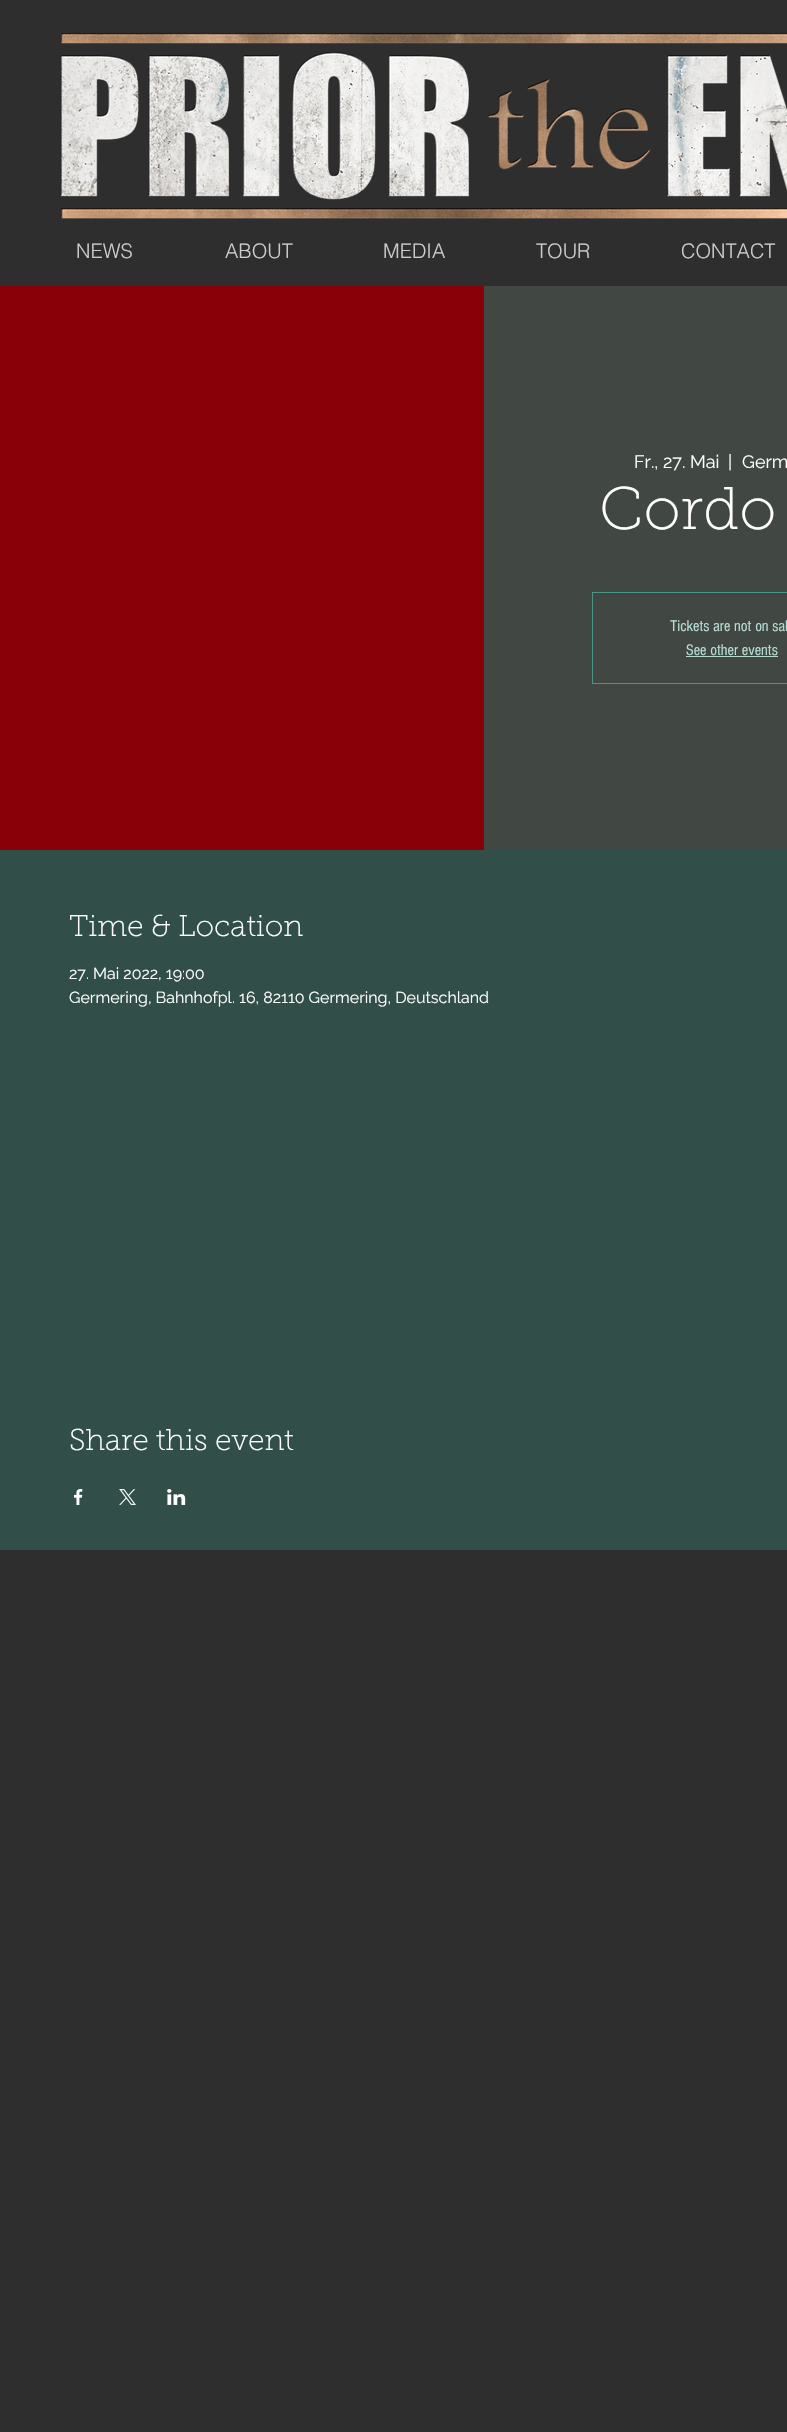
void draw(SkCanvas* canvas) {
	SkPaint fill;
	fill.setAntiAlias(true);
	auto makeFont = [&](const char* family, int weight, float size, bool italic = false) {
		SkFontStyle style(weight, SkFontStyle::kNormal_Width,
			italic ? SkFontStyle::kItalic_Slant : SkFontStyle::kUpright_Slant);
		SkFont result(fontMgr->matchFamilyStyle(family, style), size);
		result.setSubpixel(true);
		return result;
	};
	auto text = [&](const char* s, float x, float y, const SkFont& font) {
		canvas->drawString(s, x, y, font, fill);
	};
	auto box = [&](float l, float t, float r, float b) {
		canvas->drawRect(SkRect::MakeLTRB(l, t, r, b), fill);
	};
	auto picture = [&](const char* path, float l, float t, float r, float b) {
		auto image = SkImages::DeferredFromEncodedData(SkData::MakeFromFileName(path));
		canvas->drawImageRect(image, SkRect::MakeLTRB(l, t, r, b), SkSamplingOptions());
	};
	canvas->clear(0xFF2F2E2E);
	picture("image0.png", 60, 32, 787, 219);
	fill.setColor(0xFF8A0009);
	box(0, 286, 484, 850);
	fill.setColor(0xFF414742);
	box(484, 286, 787, 850);
	fill.setStyle(SkPaint::kStroke_Style);
	fill.setStrokeWidth(1);
	fill.setColor(0xFF4B9685);
	canvas->drawRect(SkRect::MakeLTRB(592.5f, 592.5f, 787.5f, 683.5f), fill);
	fill.setStyle(SkPaint::kFill_Style);
	fill.setColor(0xFFB7DCD4);
	box(686, 656, 778, 657);
	fill.setColor(0xFF314F48);
	box(0, 850, 787, 1550);
	picture("image1.png", 74, 1489, 83, 1505);
	picture("image2.png", 119, 1489, 136, 1505);
	picture("image3.png", 167, 1489, 186, 1505);
	auto font1 = makeFont("helvetica", 300, 20);
	fill.setColor(0xFFCCCCCC);
	text("NEWS", 76, 258, font1);
	text("ABOUT", 225, 258, font1);
	text("MEDIA", 383, 258, font1);
	text("TOUR", 536, 258, font1);
	text("CONTACT", 681, 258, font1);
	auto font2 = makeFont("Raleway", 400, 18);
	fill.setColor(0xFFFFFFFF);
	text("Fr., 27. Mai", 634, 468, font2);
	text("|", 728, 468, font2);
	text("Germ", 742, 468, font2);
	auto font3 = makeFont("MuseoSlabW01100", 100, 60);
	text("Cordo", 599, 529, font3);
	auto font4 = makeFont("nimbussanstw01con", 400, 16);
	fill.setColor(0xFFB7DCD4);
	text("Tickets are not on sal", 670, 631, font4);
	text("See other events", 686, 655, font4);
	auto font5 = makeFont("MuseoSlabW01100", 100, 30);
	fill.setColor(0xFFFFFFFF);
	text("Time & Location", 69, 936, font5);
	auto font6 = makeFont("Raleway", 400, 16);
	text("27. Mai 2022, 19:00", 69, 979, font6);
	text("Germering, Bahnhofpl. 16, 82110 Germering, Deutschland", 69, 1003, font6);
	text("Share this event", 69, 1450, font5);
}
